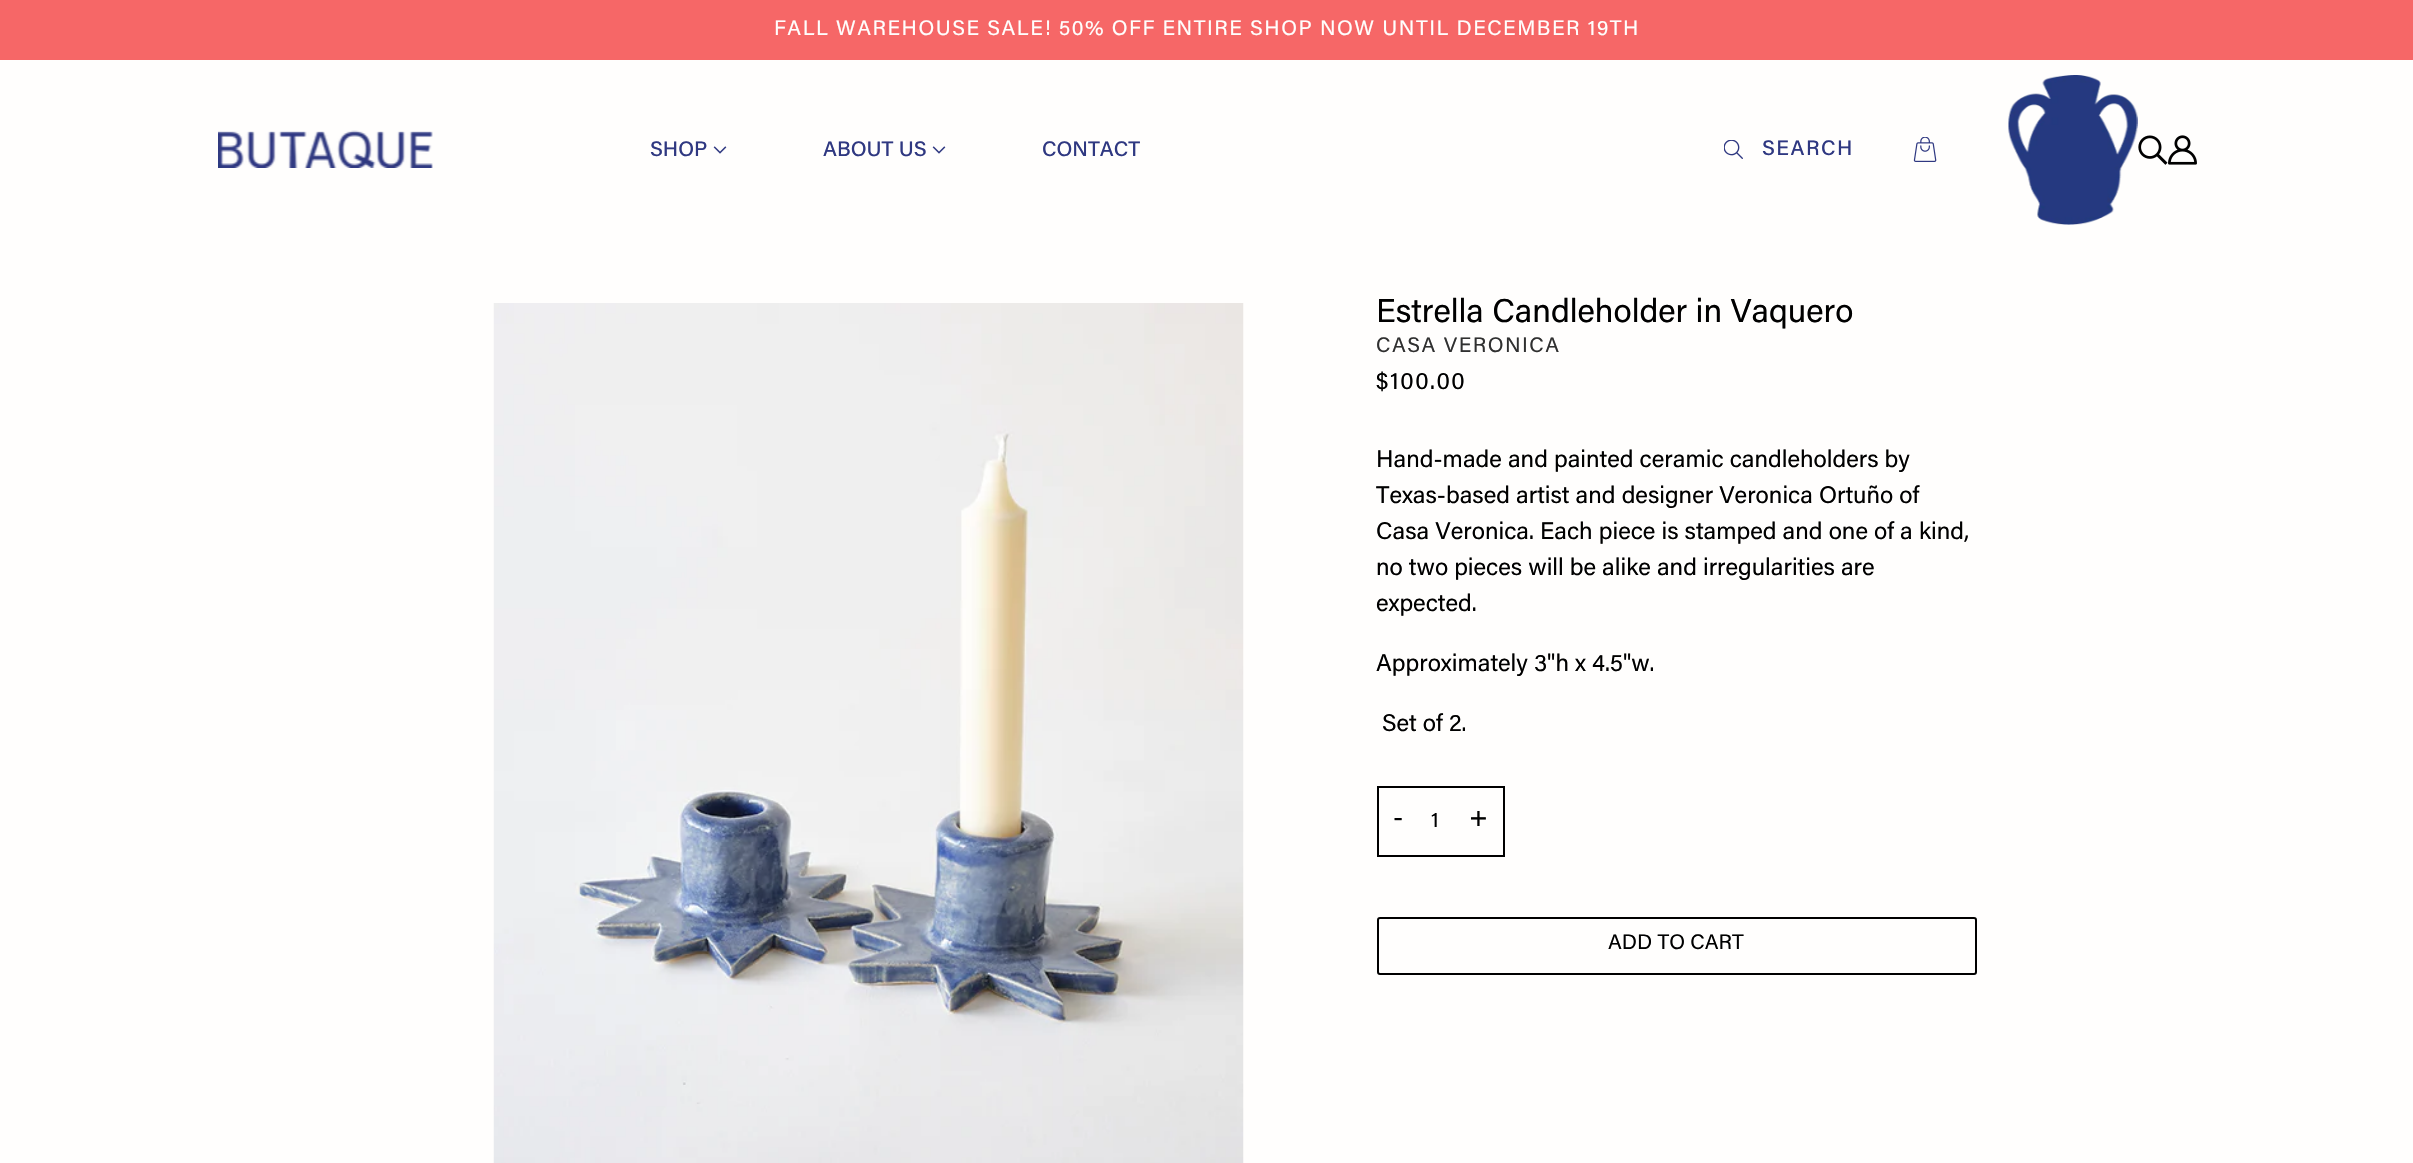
void draw(SkCanvas* canvas) {
	SkPaint fill;
	fill.setAntiAlias(true);
	auto makeFont = [&](const char* family, int weight, float size, bool italic = false) {
		SkFontStyle style(weight, SkFontStyle::kNormal_Width,
			italic ? SkFontStyle::kItalic_Slant : SkFontStyle::kUpright_Slant);
		SkFont result(fontMgr->matchFamilyStyle(family, style), size);
		result.setSubpixel(true);
		return result;
	};
	auto text = [&](const char* s, float x, float y, const SkFont& font) {
		canvas->drawString(s, x, y, font, fill);
	};
	auto spacedText = [&](const char* s, float x, float y, const SkFont& font, const SkPaint& ink, float letter, float word) {
		std::vector<SkGlyphID> glyphs(font.countText(s, strlen(s), SkTextEncoding::kUTF8));
		std::vector<float> xs(glyphs.size());
		font.textToGlyphs(s, strlen(s), SkTextEncoding::kUTF8, glyphs);
		font.getXPos(glyphs, xs, x);
		float extra = 0;
		for (size_t i = 0; i < glyphs.size(); i++) {
			xs[i] += extra;
			extra += letter + word * (glyphs[i] == font.unicharToGlyph(' '));
		}
		canvas->drawTextBlob(SkTextBlob::MakeFromPosHGlyphs(glyphs, xs, y, font), 0, 0, ink);
	};
	auto box = [&](float l, float t, float r, float b) {
		canvas->drawRect(SkRect::MakeLTRB(l, t, r, b), fill);
	};
	auto picture = [&](const char* path, float l, float t, float r, float b) {
		auto image = SkImages::DeferredFromEncodedData(SkData::MakeFromFileName(path));
		canvas->drawImageRect(image, SkRect::MakeLTRB(l, t, r, b), SkSamplingOptions());
	};
	canvas->clear(0xFFFFFEFD);
	fill.setColor(0xFFF66767);
	box(0, 0, 2413, 60);
	picture("image0.png", 218, 130, 433, 168);
	picture("image1.png", 713, 146, 727, 154);
	picture("image1.png", 932, 146, 946, 154);
	picture("image2.png", 1724, 140, 1743, 159);
	picture("image3.png", 1913, 137, 1937, 162);
	picture("image4.png", 2008, 75, 2138, 225);
	picture("image5.png", 2138, 135, 2168, 165);
	picture("image6.png", 2168, 135, 2197, 165);
	picture("image7.png", 493, 303, 1244, 1163);
	fill.setStyle(SkPaint::kStroke_Style);
	fill.setStrokeWidth(2);
	fill.setColor(0xFF000000);
	canvas->drawRect(SkRect::MakeLTRB(1378, 787, 1504, 856), fill);
	canvas->drawRoundRect(SkRect::MakeLTRB(1378, 918, 1976, 974), 2, 2, fill);
	auto font1 = makeFont("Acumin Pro", 400, 21);
	fill.setStyle(SkPaint::kFill_Style);
	fill.setColor(0xFFFFFEFD);
	spacedText("FALL WAREHOUSE SALE! 50% OFF ENTIRE SHOP NOW UNTIL DECEMBER 19TH", 774, 35, font1, fill, 1.5f, 0);
	auto font2 = makeFont("Acumin Pro", 500, 21);
	fill.setColor(0xFF2F3881);
	text("SHOP", 650, 156, font2);
	text("ABOUT US", 823, 156, font2);
	text("CONTACT", 1042, 156, font2);
	spacedText("SEARCH", 1762, 155, font2, fill, 1.5f, 0);
	auto font3 = makeFont("Acumin Pro", 400, 33);
	fill.setColor(0xFF000000);
	text("Estrella Candleholder in Vaquero", 1376, 322, font3);
	fill.setColor(0xFF303030);
	spacedText("CASA VERONICA", 1376, 352, font1, fill, 1.5f, 0);
	auto font4 = makeFont("Acumin Pro", 400, 24);
	fill.setColor(0xFF000000);
	spacedText("$100.00", 1376, 389, font4, fill, 1.5f, 0);
	text("Hand-made and painted ceramic candleholders by", 1376, 467, font4);
	text("Texas-based artist and designer Veronica Ortuño of", 1376, 503, font4);
	text("Casa Veronica. Each piece is stamped and one of a kind,", 1376, 539, font4);
	text("no two pieces will be alike and irregularities are", 1376, 575, font4);
	text("expected.", 1376, 611, font4);
	text("Approximately 3\"h x 4.5\"w.", 1376, 671, font4);
	text("Set of 2.", 1382, 731, font4);
	auto font5 = makeFont("Acumin Pro", 400, 27);
	text("-", 1393, 826, font5);
	spacedText("1", 1431, 827, font1, fill, 1.5f, 0);
	text("+", 1469, 826, font5);
	text("ADD TO CART", 1608, 949, font1);
}
